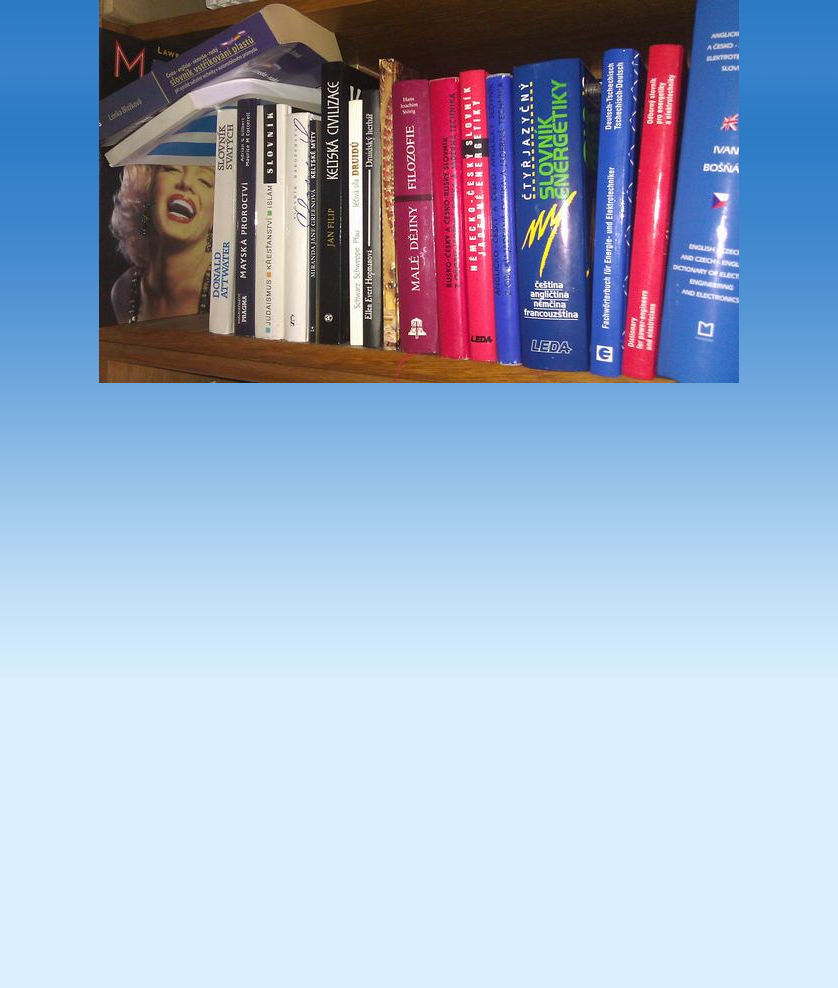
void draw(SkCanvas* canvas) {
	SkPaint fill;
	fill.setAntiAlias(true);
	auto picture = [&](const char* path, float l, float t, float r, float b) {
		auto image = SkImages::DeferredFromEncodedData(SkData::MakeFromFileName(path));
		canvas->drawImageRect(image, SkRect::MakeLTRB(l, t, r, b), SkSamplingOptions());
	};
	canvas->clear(0xFFDBF0FF);
	picture("image0.png", 0, 383, 838, 677);
	picture("image1.png", 0, 0, 838, 383);
	picture("image2.png", 99, 0, 739, 383);
}
